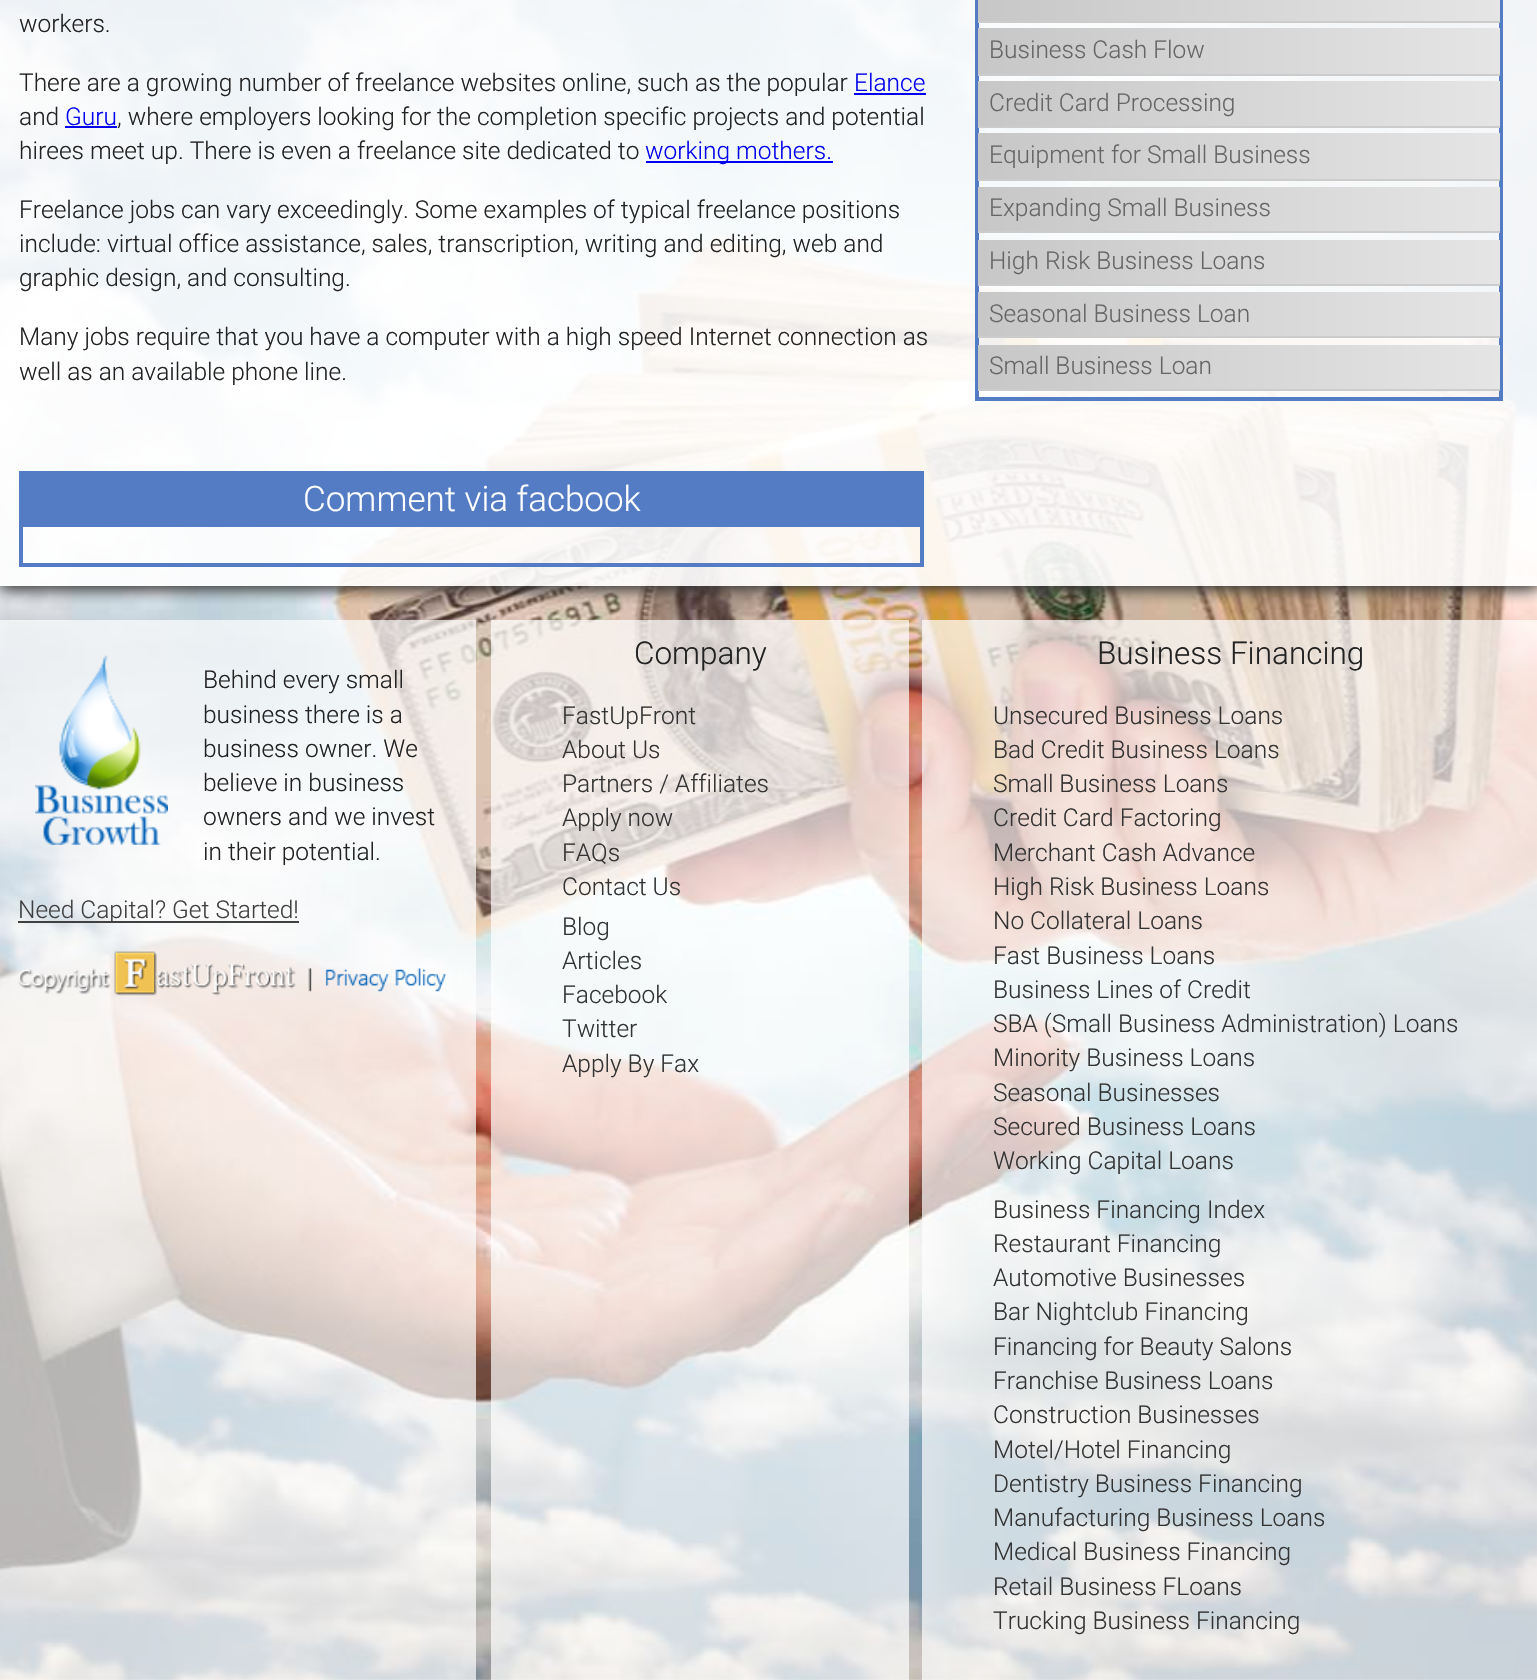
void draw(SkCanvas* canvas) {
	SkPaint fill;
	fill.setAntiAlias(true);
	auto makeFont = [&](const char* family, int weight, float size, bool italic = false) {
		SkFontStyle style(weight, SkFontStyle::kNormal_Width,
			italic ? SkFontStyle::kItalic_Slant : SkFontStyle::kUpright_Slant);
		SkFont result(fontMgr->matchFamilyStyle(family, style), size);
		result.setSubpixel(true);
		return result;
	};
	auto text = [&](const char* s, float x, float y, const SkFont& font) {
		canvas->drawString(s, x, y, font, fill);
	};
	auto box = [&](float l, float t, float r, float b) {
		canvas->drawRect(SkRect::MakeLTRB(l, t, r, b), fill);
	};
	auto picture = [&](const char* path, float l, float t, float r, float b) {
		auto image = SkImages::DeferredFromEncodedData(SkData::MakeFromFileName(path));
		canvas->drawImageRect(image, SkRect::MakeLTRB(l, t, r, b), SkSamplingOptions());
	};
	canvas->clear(0xFFFFFFFF);
	picture("image0.png", 0, 0, 1537, 1680);
	canvas->save();
	canvas->clipRect(SkRect::MakeLTRB(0, 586, 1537, 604));
	fill.setColor(0xFF333333);
	fill.setMaskFilter(SkMaskFilter::MakeBlur(kNormal_SkBlurStyle, 7));
	canvas->drawRect(SkRect::MakeLTRB(0, -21, 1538, 590), fill);
	fill.setMaskFilter(nullptr);
	canvas->restore();
	fill.setColor(0xE6FFFFFF);
	box(0, 0, 1537, 586);
	fill.setColor(0xFF0000EE);
	box(854, 93, 926, 95);
	box(65, 126, 117, 128);
	box(646, 161, 833, 163);
	fill.setStyle(SkPaint::kStroke_Style);
	fill.setStrokeWidth(4);
	fill.setColor(0xFF547CC4);
	canvas->drawRect(SkRect::MakeLTRB(21, 473, 922, 565), fill);
	fill.setStyle(SkPaint::kFill_Style);
	box(23, 475, 920, 527);
	fill.setStyle(SkPaint::kStroke_Style);
	canvas->drawRect(SkRect::MakeLTRB(977, -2, 1501, 399), fill);
	fill.setStyle(SkPaint::kFill_Style);
	{
		const SkColor colors[] = {0xFFC7C7C7, 0xFFE5E5E5};
		const float stops[] = {0, 1};
		const SkPoint ends[] = {{978, -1.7f}, {1500, -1.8f}};
		fill.setShader(SkGradientShader::MakeLinear(ends, colors, stops, 2, SkTileMode::kClamp));
		fill.setAlpha(255);
	}
	box(978, 0, 1500, 21);
	fill.setShader(nullptr);
	fill.setColor(0xFFCCCCCC);
	box(978, 21, 1500, 23);
	{
		const SkColor colors[] = {0xFFC7C7C7, 0xFFE5E5E5};
		const float stops[] = {0, 1};
		const SkPoint ends[] = {{978, 51}, {1500, 51}};
		fill.setShader(SkGradientShader::MakeLinear(ends, colors, stops, 2, SkTileMode::kClamp));
		fill.setAlpha(255);
	}
	box(978, 28, 1500, 74);
	fill.setShader(nullptr);
	fill.setColor(0xFFCCCCCC);
	box(978, 74, 1500, 76);
	{
		const SkColor colors[] = {0xFFC7C7C7, 0xFFE5E5E5};
		const float stops[] = {0, 1};
		const SkPoint ends[] = {{978, 103}, {1500, 103}};
		fill.setShader(SkGradientShader::MakeLinear(ends, colors, stops, 2, SkTileMode::kClamp));
		fill.setAlpha(255);
	}
	box(978, 81, 1500, 126);
	fill.setShader(nullptr);
	fill.setColor(0xFFCCCCCC);
	box(978, 126, 1500, 128);
	{
		const SkColor colors[] = {0xFFC7C7C7, 0xFFE5E5E5};
		const float stops[] = {0, 1};
		const SkPoint ends[] = {{978, 156}, {1500, 156}};
		fill.setShader(SkGradientShader::MakeLinear(ends, colors, stops, 2, SkTileMode::kClamp));
		fill.setAlpha(255);
	}
	box(978, 133, 1500, 179);
	fill.setShader(nullptr);
	fill.setColor(0xFFCCCCCC);
	box(978, 179, 1500, 181);
	{
		const SkColor colors[] = {0xFFC7C7C7, 0xFFE5E5E5};
		const float stops[] = {0, 1};
		const SkPoint ends[] = {{978, 209}, {1500, 209}};
		fill.setShader(SkGradientShader::MakeLinear(ends, colors, stops, 2, SkTileMode::kClamp));
		fill.setAlpha(255);
	}
	box(978, 187, 1500, 231);
	fill.setShader(nullptr);
	fill.setColor(0xFFCCCCCC);
	box(978, 231, 1500, 233);
	{
		const SkColor colors[] = {0xFFC7C7C7, 0xFFE5E5E5};
		const float stops[] = {0, 1};
		const SkPoint ends[] = {{978, 262}, {1500, 262}};
		fill.setShader(SkGradientShader::MakeLinear(ends, colors, stops, 2, SkTileMode::kClamp));
		fill.setAlpha(255);
	}
	box(978, 240, 1500, 284);
	fill.setShader(nullptr);
	fill.setColor(0xFFCCCCCC);
	box(978, 284, 1500, 286);
	{
		const SkColor colors[] = {0xFFC7C7C7, 0xFFE5E5E5};
		const float stops[] = {0, 1};
		const SkPoint ends[] = {{978, 314}, {1500, 314}};
		fill.setShader(SkGradientShader::MakeLinear(ends, colors, stops, 2, SkTileMode::kClamp));
		fill.setAlpha(255);
	}
	box(978, 292, 1500, 336);
	fill.setShader(nullptr);
	fill.setColor(0xFFCCCCCC);
	box(978, 336, 1500, 338);
	{
		const SkColor colors[] = {0xFFC7C7C7, 0xFFE5E5E5};
		const float stops[] = {0, 1};
		const SkPoint ends[] = {{978, 367}, {1500, 367}};
		fill.setShader(SkGradientShader::MakeLinear(ends, colors, stops, 2, SkTileMode::kClamp));
		fill.setAlpha(255);
	}
	box(978, 345, 1500, 389);
	fill.setShader(nullptr);
	fill.setColor(0xFFCCCCCC);
	box(978, 389, 1500, 391);
	fill.setColor(0xB3FFFFFF);
	box(0, 620, 476, 1680);
	picture("image1.png", 35, 655, 168, 845);
	fill.setColor(0xFF404041);
	box(18, 921, 299, 923);
	picture("image2.png", 18, 951, 447, 996);
	fill.setColor(0xB3FFFFFF);
	box(491, 620, 909, 1680);
	box(922, 620, 1537, 1680);
	auto font1 = makeFont("Roboto", 300, 24.5f);
	fill.setColor(0xFF222222);
	text("workers.", 19, 32, font1);
	text("There are a growing number of freelance websites online, such as the popular", 19, 91, font1);
	fill.setColor(0xFF0000EE);
	text("Elance", 854, 91, font1);
	fill.setColor(0xFF222222);
	text("and", 19, 125, font1);
	fill.setColor(0xFF0000EE);
	text("Guru", 65, 125, font1);
	fill.setColor(0xFF222222);
	text(", where employers looking for the completion specific projects and potential", 117, 125, font1);
	text("hirees meet up. There is even a freelance site dedicated to", 19, 159, font1);
	fill.setColor(0xFF0000EE);
	text("working mothers.", 645, 159, font1);
	fill.setColor(0xFF222222);
	text("Freelance jobs can vary exceedingly. Some examples of typical freelance positions", 19, 218, font1);
	text("include: virtual office assistance, sales, transcription, writing and editing, web and", 19, 252, font1);
	text("graphic design, and consulting.", 19, 286, font1);
	text("Many jobs require that you have a computer with a high speed Internet connection as", 19, 345, font1);
	text("well as an available phone line.", 19, 380, font1);
	auto font2 = makeFont("Roboto", 300, 35);
	fill.setColor(0xFFFFFFFF);
	text("Comment via facbook", 303, 511, font2);
	fill.setColor(0xFF666666);
	text("Business Cash Flow", 989, 58, font1);
	text("Credit Card Processing", 989, 111, font1);
	text("Equipment for Small Business", 989, 163, font1);
	text("Expanding Small Business", 989, 216, font1);
	text("High Risk Business Loans", 989, 269, font1);
	text("Seasonal Business Loan", 989, 322, font1);
	text("Small Business Loan", 989, 374, font1);
	fill.setColor(0xFF222222);
	text("Behind every small", 203, 688, font1);
	text("business there is a", 203, 723, font1);
	text("business owner. We", 203, 757, font1);
	text("believe in business", 203, 791, font1);
	text("owners and we invest", 203, 825, font1);
	text("in their potential.", 203, 860, font1);
	fill.setColor(0xFF404041);
	text("Need Capital? Get Started!", 18, 918, font1);
	auto font3 = makeFont("Roboto", 300, 31.5f);
	fill.setColor(0xFF222222);
	text("Company", 634, 664, font3);
	fill.setColor(0xFF333333);
	text("FastUpFront", 562, 724, font1);
	text("About Us", 562, 758, font1);
	text("Partners / Affiliates", 562, 792, font1);
	text("Apply now", 562, 826, font1);
	text("FAQs", 562, 861, font1);
	text("Contact Us", 562, 895, font1);
	text("Blog", 562, 935, font1);
	text("Articles", 562, 969, font1);
	text("Facebook", 562, 1003, font1);
	text("Twitter", 562, 1037, font1);
	text("Apply By Fax", 562, 1072, font1);
	fill.setColor(0xFF222222);
	text("Business Financing", 1097, 664, font3);
	fill.setColor(0xFF333333);
	text("Unsecured Business Loans", 993, 724, font1);
	text("Bad Credit Business Loans", 993, 758, font1);
	text("Small Business Loans", 993, 792, font1);
	text("Credit Card Factoring", 993, 826, font1);
	text("Merchant Cash Advance", 993, 861, font1);
	text("High Risk Business Loans", 993, 895, font1);
	text("No Collateral Loans", 993, 929, font1);
	text("Fast Business Loans", 993, 964, font1);
	text("Business Lines of Credit", 993, 998, font1);
	text("SBA (Small Business Administration) Loans", 993, 1032, font1);
	text("Minority Business Loans", 993, 1066, font1);
	text("Seasonal Businesses", 993, 1101, font1);
	text("Secured Business Loans", 993, 1135, font1);
	text("Working Capital Loans", 993, 1169, font1);
	text("Business Financing Index", 993, 1218, font1);
	text("Restaurant Financing", 993, 1252, font1);
	text("Automotive Businesses", 993, 1286, font1);
	text("Bar Nightclub Financing", 993, 1320, font1);
	text("Financing for Beauty Salons", 993, 1355, font1);
	text("Franchise Business Loans", 993, 1389, font1);
	text("Construction Businesses", 993, 1423, font1);
	text("Motel/Hotel Financing", 993, 1458, font1);
	text("Dentistry Business Financing", 993, 1492, font1);
	text("Manufacturing Business Loans", 993, 1526, font1);
	text("Medical Business Financing", 993, 1560, font1);
	text("Retail Business FLoans", 993, 1595, font1);
	text("Trucking Business Financing", 993, 1629, font1);
}
